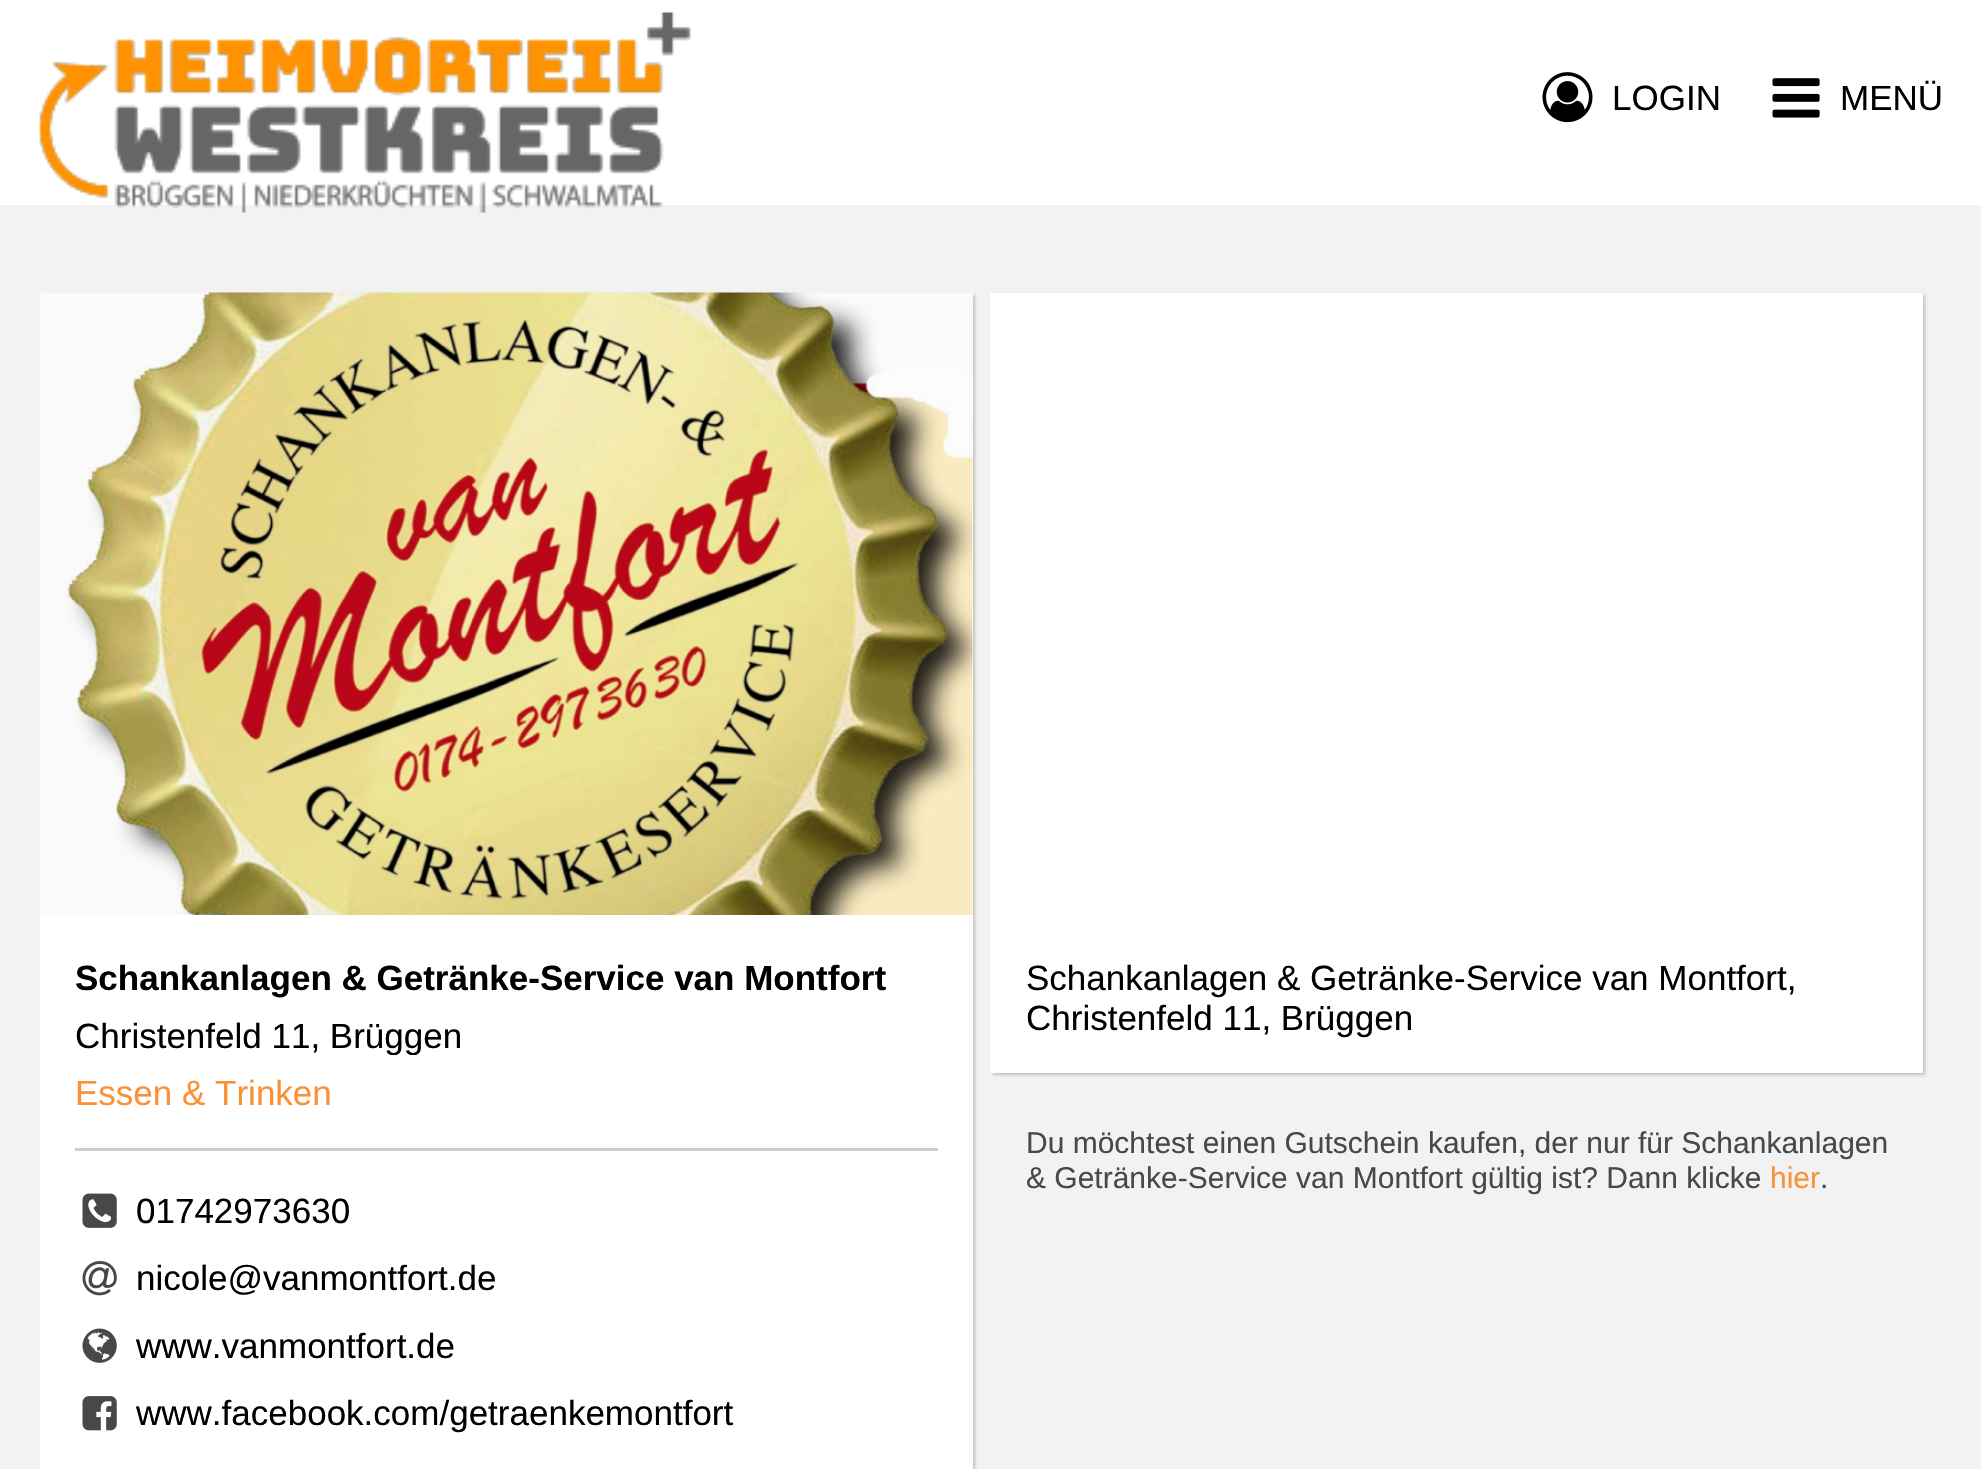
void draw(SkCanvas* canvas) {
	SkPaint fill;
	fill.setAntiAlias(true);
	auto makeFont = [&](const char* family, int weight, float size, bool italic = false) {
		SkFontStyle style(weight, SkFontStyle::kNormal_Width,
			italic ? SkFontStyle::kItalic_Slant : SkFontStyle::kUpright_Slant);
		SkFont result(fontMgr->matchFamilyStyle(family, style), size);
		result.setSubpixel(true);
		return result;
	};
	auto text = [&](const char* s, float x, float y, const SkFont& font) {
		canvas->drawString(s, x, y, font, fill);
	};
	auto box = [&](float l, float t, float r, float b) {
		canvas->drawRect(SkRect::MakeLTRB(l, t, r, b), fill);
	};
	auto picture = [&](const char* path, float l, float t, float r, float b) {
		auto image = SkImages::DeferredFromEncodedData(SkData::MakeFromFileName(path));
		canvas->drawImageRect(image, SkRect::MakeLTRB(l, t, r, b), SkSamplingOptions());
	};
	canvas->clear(0xFFF2F2F2);
	fill.setColor(0xFFFFFFFF);
	box(0, 0, 1981, 205);
	picture("image0.png", 39, 12, 691, 213);
	picture("image1.png", 1542, 72, 1593, 123);
	picture("image2.png", 1772, 78, 1820, 118);
	fill.setColor(0x33000000);
	fill.setMaskFilter(SkMaskFilter::MakeBlur(kNormal_SkBlurStyle, 1.5f));
	canvas->drawRect(SkRect::MakeLTRB(43, 295, 975, 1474), fill);
	fill.setMaskFilter(nullptr);
	fill.setColor(0xFFFFFFFF);
	box(40, 293, 973, 1469);
	picture("image3.png", 40, 292, 973, 915);
	fill.setColor(0xFFCECECE);
	box(75, 1148, 938, 1151);
	picture("image4.png", 82, 1193, 117, 1228);
	picture("image5.png", 82, 1261, 117, 1296);
	picture("image6.png", 82, 1328, 117, 1363);
	picture("image7.png", 82, 1396, 117, 1431);
	fill.setColor(0x33000000);
	fill.setMaskFilter(SkMaskFilter::MakeBlur(kNormal_SkBlurStyle, 1.5f));
	canvas->drawRect(SkRect::MakeLTRB(993, 295, 1925, 1075), fill);
	fill.setMaskFilter(nullptr);
	fill.setColor(0xFFFFFFFF);
	box(990, 293, 1923, 1073);
	auto font1 = makeFont("Liberation Sans", 400, 35);
	fill.setColor(0xFF000000);
	text("LOGIN", 1612, 110, font1);
	text("MENÜ", 1840, 110, font1);
	auto font2 = makeFont("Liberation Sans", 700, 35);
	text("Schankanlagen & Getränke-Service van Montfort", 75, 990, font2);
	canvas->save();
	canvas->clipRect(SkRect::MakeLTRB(75, 1015, 938, 1055));
	text("Christenfeld 11, Brüggen", 75, 1048, font1);
	canvas->restore();
	fill.setColor(0xFFFB9136);
	text("Essen & Trinken", 75, 1105, font1);
	fill.setColor(0xFF000000);
	text("01742973630", 136, 1223, font1);
	text("nicole@vanmontfort.de", 136, 1290, font1);
	text("www.vanmontfort.de", 136, 1358, font1);
	text("www.facebook.com/getraenkemontfort", 136, 1425, font1);
	text("Schankanlagen & Getränke-Service van Montfort,", 1026, 990, font1);
	text("Christenfeld 11, Brüggen", 1026, 1030, font1);
	auto font3 = makeFont("Liberation Sans", 400, 30);
	fill.setColor(0xFF474847);
	text("Du möchtest einen Gutschein kaufen, der nur für Schankanlagen", 1026, 1153, font3);
	text("& Getränke-Service van Montfort gültig ist? Dann klicke", 1026, 1188, font3);
	fill.setColor(0xFFFB9136);
	text("hier", 1770, 1188, font3);
	fill.setColor(0xFF474847);
	text(".", 1820, 1188, font3);
}
